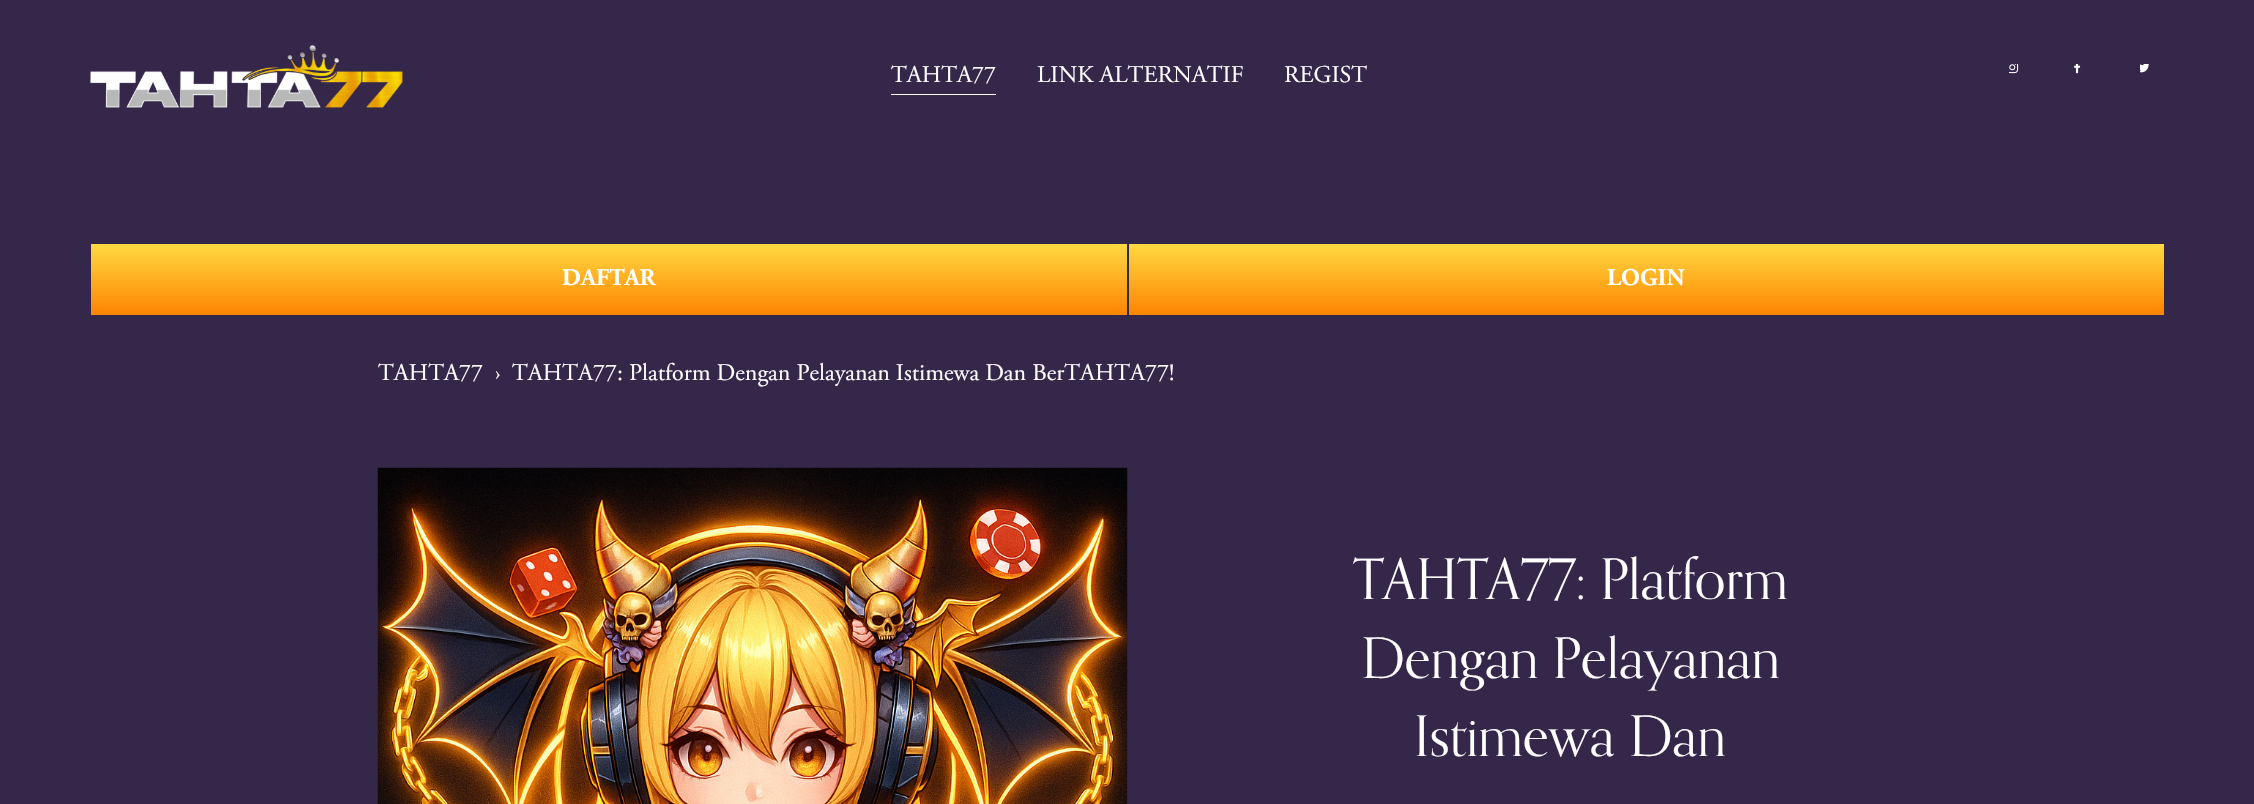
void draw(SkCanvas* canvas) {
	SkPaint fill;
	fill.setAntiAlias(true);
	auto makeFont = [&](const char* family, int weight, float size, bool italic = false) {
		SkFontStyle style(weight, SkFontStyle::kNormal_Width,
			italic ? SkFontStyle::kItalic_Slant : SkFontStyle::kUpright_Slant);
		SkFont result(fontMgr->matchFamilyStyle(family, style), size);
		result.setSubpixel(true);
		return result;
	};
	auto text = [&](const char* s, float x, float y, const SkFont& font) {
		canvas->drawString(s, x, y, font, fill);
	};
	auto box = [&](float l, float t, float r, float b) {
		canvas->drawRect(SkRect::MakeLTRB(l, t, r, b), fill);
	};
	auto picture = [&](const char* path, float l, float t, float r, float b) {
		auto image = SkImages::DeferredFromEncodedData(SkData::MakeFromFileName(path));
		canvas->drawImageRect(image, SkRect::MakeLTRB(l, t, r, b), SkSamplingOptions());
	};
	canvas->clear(0xFF34274A);
	picture("image0.png", 90, 45, 403, 108);
	fill.setColor(0xFFFFFFFF);
	box(891, 94, 996, 95);
	picture("image1.png", 2009, 64, 2019, 74);
	picture("image2.png", 2074, 64, 2081, 74);
	picture("image3.png", 2140, 64, 2149, 73);
	{
		const SkColor colors[] = {0xFFFFD942, 0xFFFF8400};
		const float stops[] = {0, 1};
		const SkPoint ends[] = {{609, 244}, {609, 315}};
		fill.setShader(SkGradientShader::MakeLinear(ends, colors, stops, 2, SkTileMode::kClamp));
		fill.setAlpha(255);
	}
	box(91, 244, 1127, 315);
	{
		const SkColor colors[] = {0xFFFFD942, 0xFFFF8400};
		const float stops[] = {0, 1};
		const SkPoint ends[] = {{1646, 244}, {1646, 315}};
		fill.setShader(SkGradientShader::MakeLinear(ends, colors, stops, 2, SkTileMode::kClamp));
		fill.setAlpha(255);
	}
	box(1129, 244, 2164, 315);
	picture("image4.png", 377, 467, 1128, 804);
	auto font1 = makeFont("Adobe Garamond", 400, 24);
	fill.setShader(nullptr);
	fill.setColor(0xFFFFFFFF);
	text("TAHTA77", 891, 82, font1);
	text("LINK ALTERNATIF", 1037, 82, font1);
	text("REGIST", 1284, 82, font1);
	auto font2 = makeFont("Adobe Garamond", 700, 24);
	text("DAFTAR", 562, 285, font2);
	text("LOGIN", 1607, 285, font2);
	text("TAHTA77", 378, 380, font1);
	text("›", 495, 380, font1);
	text("TAHTA77: Platform Dengan Pelayanan Istimewa Dan BerTAHTA77!", 512, 380, font1);
	auto font3 = makeFont("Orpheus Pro", 400, 56);
	text("TAHTA77: Platform", 1353, 599, font3);
	text("Dengan Pelayanan", 1361, 678, font3);
	text("Istimewa Dan", 1414, 756, font3);
}
